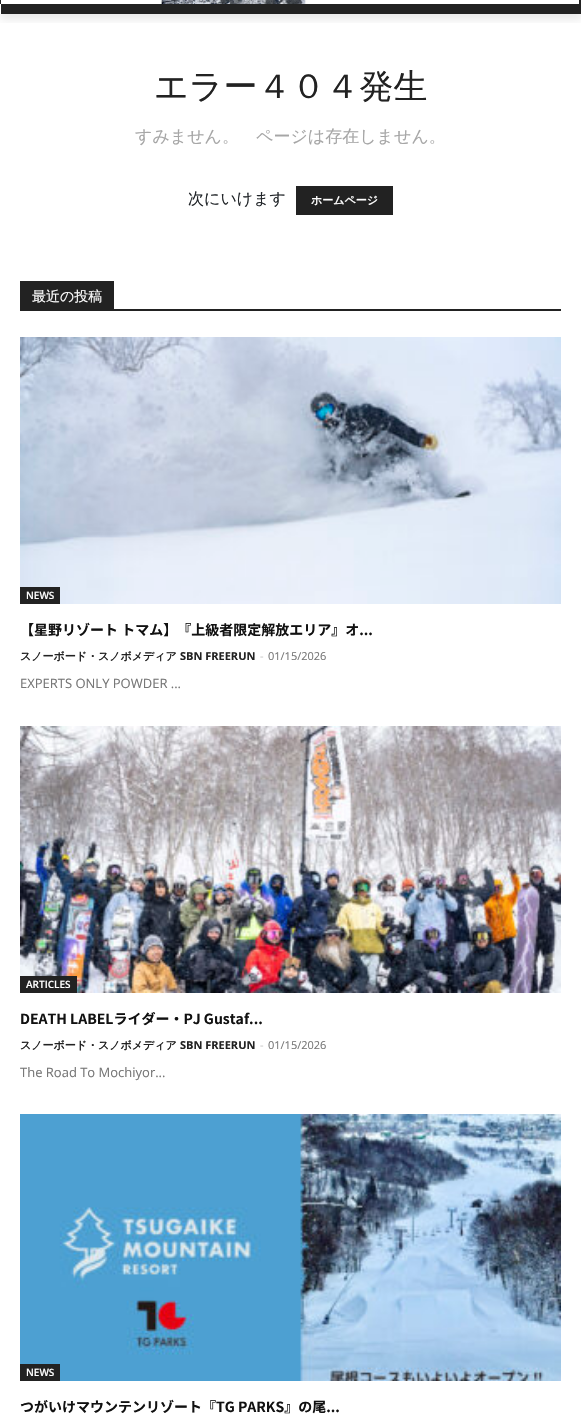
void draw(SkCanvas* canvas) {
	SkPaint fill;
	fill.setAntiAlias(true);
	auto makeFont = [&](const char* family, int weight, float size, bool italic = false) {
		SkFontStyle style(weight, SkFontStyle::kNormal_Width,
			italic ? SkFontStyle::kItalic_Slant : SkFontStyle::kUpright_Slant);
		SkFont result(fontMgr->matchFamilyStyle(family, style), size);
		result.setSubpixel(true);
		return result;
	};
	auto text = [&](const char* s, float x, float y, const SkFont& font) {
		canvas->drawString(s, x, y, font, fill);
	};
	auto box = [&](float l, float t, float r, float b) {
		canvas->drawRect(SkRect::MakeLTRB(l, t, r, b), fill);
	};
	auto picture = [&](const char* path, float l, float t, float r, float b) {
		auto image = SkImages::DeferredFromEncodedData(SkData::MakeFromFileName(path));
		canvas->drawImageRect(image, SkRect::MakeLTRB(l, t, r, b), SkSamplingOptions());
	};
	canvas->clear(0xFFFFFFFF);
	fill.setColor(0xFF222222);
	box(0, 0, 581, 4);
	picture("image0.png", 1, 0, 579, 4);
	box(1, 4, 581, 14);
	canvas->save();
	canvas->clipRect(SkRect::MakeLTRB(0, 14, 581, 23));
	fill.setColor(0x14000000);
	fill.setMaskFilter(SkMaskFilter::MakeBlur(kNormal_SkBlurStyle, 4));
	canvas->drawRect(SkRect::MakeLTRB(1, -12, 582, 20), fill);
	fill.setMaskFilter(nullptr);
	canvas->restore();
	fill.setColor(0xFF222222);
	box(296, 186, 393, 215);
	box(20, 309, 561, 311);
	box(20, 281, 114, 309);
	picture("image1.png", 20, 337, 561, 604);
	box(20, 587, 60, 604);
	picture("image2.png", 20, 726, 561, 993);
	box(20, 976, 77, 993);
	picture("image3.png", 20, 1114, 561, 1381);
	box(20, 1364, 60, 1381);
	auto font1 = makeFont("WenQuanYi Zen Hei", 500, 34);
	text("エラー４０４発生", 154, 98, font1);
	auto font2 = makeFont("WenQuanYi Zen Hei", 500, 17);
	fill.setColor(0xFFA6A6A6);
	text("すみません。　ページは存在しません。", 135, 142, font2);
	auto font3 = makeFont("WenQuanYi Zen Hei", 500, 16);
	fill.setColor(0xFF212529);
	text("次にいけます", 188, 204, font3);
	auto font4 = makeFont("WenQuanYi Zen Hei", 700, 11);
	fill.setColor(0xFFFFFFFF);
	text("ホームページ", 311, 204, font4);
	auto font5 = makeFont("WenQuanYi Zen Hei", 500, 14);
	text("最近の投稿", 32, 301, font5);
	auto font6 = makeFont("Open Sans", 600, 10);
	text("NEWS", 26, 599, font6);
	auto font7 = makeFont("Noto Sans JP", 700, 14);
	fill.setColor(0xFF111111);
	text("【星野リゾート トマム】『上級者限定解放エリア』オ...", 20, 635, font7);
	fill.setColor(0xFF222222);
	text("スノーボード・スノボメディア", 20, 660, font4);
	auto font8 = makeFont("Open Sans", 700, 11);
	text("SBN FREERUN", 180, 660, font8);
	auto font9 = makeFont("Open Sans", 400, 11);
	fill.setColor(0xFFCCCCCC);
	text("-", 260, 660, font9);
	fill.setColor(0xFF767676);
	text("01/15/2026", 268, 660, font9);
	auto font10 = makeFont("Open Sans", 400, 13);
	text("EXPERTS ONLY POWDER ...", 20, 688, font10);
	fill.setColor(0xFFFFFFFF);
	text("ARTICLES", 26, 988, font6);
	fill.setColor(0xFF111111);
	text("DEATH LABELライダー・PJ Gustaf...", 20, 1024, font7);
	fill.setColor(0xFF222222);
	text("スノーボード・スノボメディア", 20, 1049, font4);
	text("SBN FREERUN", 180, 1049, font8);
	fill.setColor(0xFFCCCCCC);
	text("-", 260, 1049, font9);
	fill.setColor(0xFF767676);
	text("01/15/2026", 268, 1049, font9);
	text("The Road To Mochiyor...", 20, 1077, font10);
	fill.setColor(0xFFFFFFFF);
	text("NEWS", 26, 1376, font6);
	fill.setColor(0xFF111111);
	text("つがいけマウンテンリゾート『TG PARKS』の尾...", 20, 1412, font7);
}
